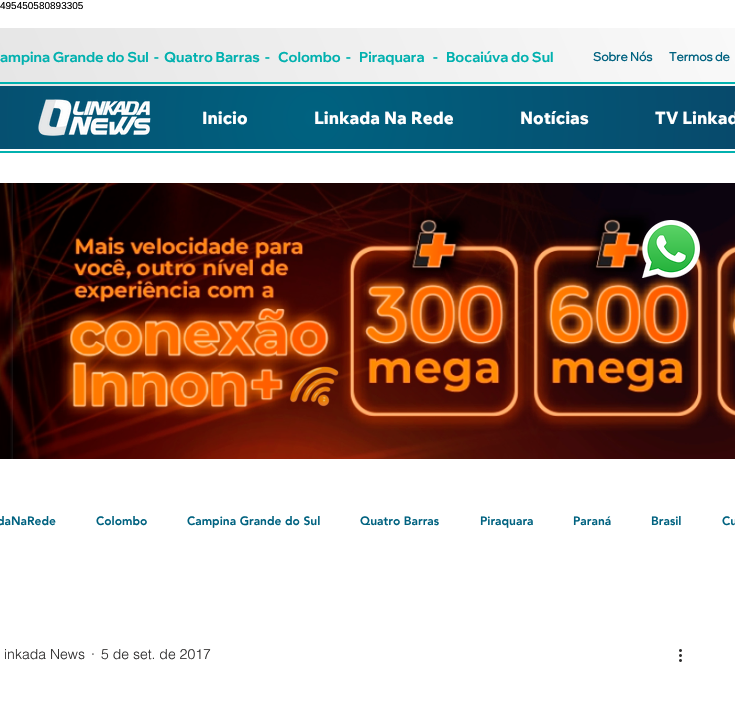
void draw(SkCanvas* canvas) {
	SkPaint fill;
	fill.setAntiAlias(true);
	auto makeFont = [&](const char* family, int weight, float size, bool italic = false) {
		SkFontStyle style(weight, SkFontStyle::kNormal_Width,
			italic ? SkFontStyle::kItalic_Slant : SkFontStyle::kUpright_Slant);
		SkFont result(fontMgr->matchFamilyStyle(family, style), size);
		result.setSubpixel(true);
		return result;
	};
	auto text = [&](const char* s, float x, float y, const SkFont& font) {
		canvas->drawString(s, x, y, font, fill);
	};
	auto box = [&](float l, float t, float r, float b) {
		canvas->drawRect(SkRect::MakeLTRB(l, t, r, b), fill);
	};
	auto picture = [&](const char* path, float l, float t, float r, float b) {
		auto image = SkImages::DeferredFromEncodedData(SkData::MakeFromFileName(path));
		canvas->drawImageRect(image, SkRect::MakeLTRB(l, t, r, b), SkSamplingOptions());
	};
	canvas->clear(0xFFFFFFFF);
	{
		const SkColor colors[] = {0xFFFFFFFF, 0xFFE6E6E6};
		const float stops[] = {0, 1};
		const SkPoint ends[] = {{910, -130}, {70, 244}};
		fill.setShader(SkGradientShader::MakeLinear(ends, colors, stops, 2, SkTileMode::kClamp));
		fill.setAlpha(255);
	}
	box(0, 28, 735, 86);
	fill.setShader(nullptr);
	fill.setColor(0xFF01B1AF);
	box(0, 82, 735, 84);
	{
		const SkColor colors[] = {0xFF006280, 0xFF0C3C60};
		const float stops[] = {0, 1};
		fill.setShader(SkGradientShader::MakeRadial({314, 118}, 667, colors, stops, 2, SkTileMode::kClamp));
		fill.setAlpha(255);
	}
	box(0, 86, 735, 149);
	picture("image0.png", 38, 99, 151, 136);
	fill.setShader(nullptr);
	fill.setColor(0xFF01B1AF);
	box(0, 151, 735, 153);
	picture("image2.png", 0, 183, 735, 459);
	picture("image1.png", 642, 220, 700, 278);
	picture("image3.png", 679, 649, 682, 662);
	auto font1 = makeFont("Liberation Sans", 400, 10);
	fill.setColor(0xFF000000);
	text("495450580893305", 0, 9, font1);
	auto font2 = makeFont("Wix Madefor Display", 700, 14);
	fill.setColor(0xFF01B1AF);
	text("ampina Grande do Sul", 0, 62, font2);
	text("-", 154, 62, font2);
	text("Quatro Barras", 164, 62, font2);
	text("-", 265, 62, font2);
	text("Colombo", 278, 62, font2);
	text("-", 346, 62, font2);
	text("Piraquara", 359, 62, font2);
	text("-   Bocaiúva do Sul", 433, 62, font2);
	auto font3 = makeFont("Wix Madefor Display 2", 700, 12);
	fill.setColor(0xFF006280);
	text("Sobre Nós", 593, 61, font3);
	text("Termos de", 669, 61, font3);
	auto font4 = makeFont("Wix Madefor Text", 800, 17);
	fill.setColor(0xFFFFFFFF);
	text("Inicio", 202, 124, font4);
	text("Linkada Na Rede", 314, 124, font4);
	text("Notícias", 520, 124, font4);
	text("TV Linkad", 655, 124, font4);
	auto font5 = makeFont("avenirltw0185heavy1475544", 900, 12);
	fill.setColor(0xFF006280);
	text("daNaRede", -3, 525, font5);
	text("Colombo", 96, 525, font5);
	text("Campina Grande do Sul", 187, 525, font5);
	text("Quatro Barras", 360, 525, font5);
	text("Piraquara", 480, 525, font5);
	text("Paraná", 573, 525, font5);
	text("Brasil", 651, 525, font5);
	text("Cu", 722, 525, font5);
	auto font6 = makeFont("helvetica", 300, 14);
	fill.setColor(0xFF2F2E2E);
	text("inkada News", 4, 659, font6);
	text("·", 91, 659, font6);
	text("5 de set. de 2017", 101, 659, font6);
}
